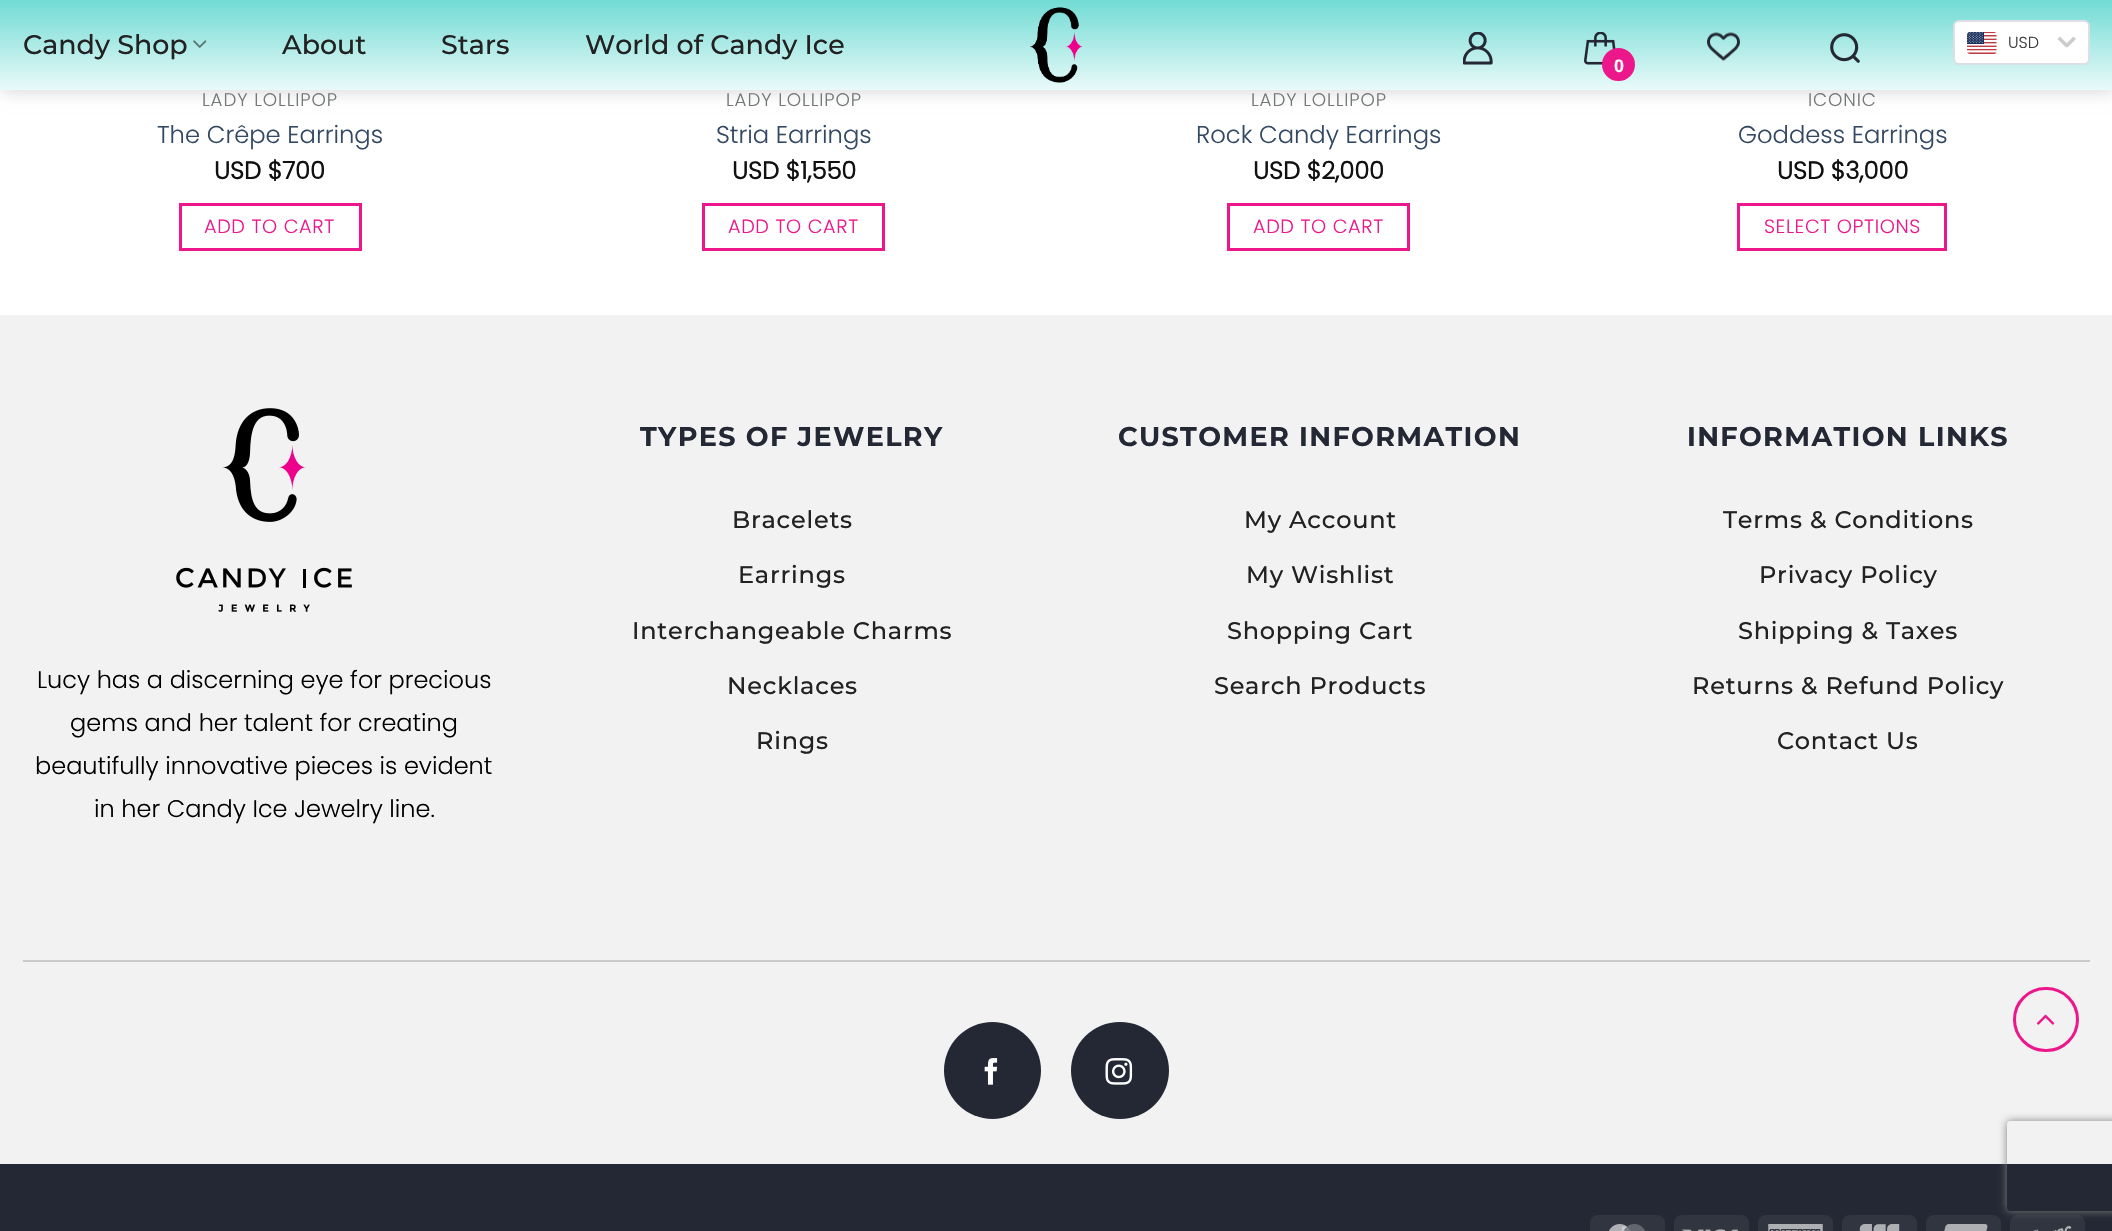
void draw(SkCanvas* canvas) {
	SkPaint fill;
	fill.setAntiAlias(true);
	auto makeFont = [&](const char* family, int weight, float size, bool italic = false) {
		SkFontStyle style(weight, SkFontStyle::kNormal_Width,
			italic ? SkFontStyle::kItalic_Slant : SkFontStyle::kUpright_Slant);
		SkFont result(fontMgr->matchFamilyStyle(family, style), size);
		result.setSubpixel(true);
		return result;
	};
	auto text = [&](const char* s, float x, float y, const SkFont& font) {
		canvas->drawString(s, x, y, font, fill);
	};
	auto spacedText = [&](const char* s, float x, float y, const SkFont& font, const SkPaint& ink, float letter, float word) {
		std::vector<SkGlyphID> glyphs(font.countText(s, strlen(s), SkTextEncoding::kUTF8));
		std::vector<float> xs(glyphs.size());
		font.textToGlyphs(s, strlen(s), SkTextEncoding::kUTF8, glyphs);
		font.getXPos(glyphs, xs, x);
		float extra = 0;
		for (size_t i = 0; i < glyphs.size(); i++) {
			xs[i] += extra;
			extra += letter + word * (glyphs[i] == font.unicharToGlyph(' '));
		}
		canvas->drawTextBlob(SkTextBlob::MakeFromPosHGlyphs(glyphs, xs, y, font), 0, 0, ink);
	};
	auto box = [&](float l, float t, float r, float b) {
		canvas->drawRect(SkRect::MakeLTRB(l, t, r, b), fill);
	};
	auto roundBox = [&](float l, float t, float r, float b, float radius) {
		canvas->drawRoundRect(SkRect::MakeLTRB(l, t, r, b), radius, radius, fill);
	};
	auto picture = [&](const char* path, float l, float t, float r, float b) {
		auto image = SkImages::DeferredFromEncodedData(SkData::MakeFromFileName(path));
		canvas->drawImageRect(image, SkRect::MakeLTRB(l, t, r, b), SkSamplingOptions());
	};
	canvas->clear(0xFFFFFFFF);
	fill.setColor(0x26000000);
	fill.setMaskFilter(SkMaskFilter::MakeBlur(kNormal_SkBlurStyle, 7.5f));
	canvas->drawRect(SkRect::MakeLTRB(2, 2, 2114, 92), fill);
	fill.setMaskFilter(nullptr);
	{
		const SkColor colors[] = {0xFF71DBD4, 0xFFE9FAF9};
		const float stops[] = {0, 1};
		const SkPoint ends[] = {{1056, 0}, {1056, 90}};
		fill.setShader(SkGradientShader::MakeLinear(ends, colors, stops, 2, SkTileMode::kClamp));
		fill.setAlpha(255);
	}
	box(0, 0, 2112, 90);
	picture("image0.png", 193, 40, 207, 48);
	picture("image1.png", 1029, 7, 1083, 83);
	picture("image2.png", 1463, 32, 1493, 65);
	picture("image3.png", 1707, 32, 1740, 61);
	picture("image4.png", 1830, 33, 1860, 63);
	fill.setShader(nullptr);
	fill.setColor(0xFFFFFFFF);
	canvas->drawRoundRect(SkRect::MakeLTRB(1954, 21, 2089, 64), 5, 5, fill);
	fill.setStyle(SkPaint::kStroke_Style);
	fill.setStrokeWidth(2);
	fill.setColor(0xFFDCDFE6);
	canvas->drawRoundRect(SkRect::MakeLTRB(1954, 21, 2089, 64), 5, 5, fill);
	picture("image5.png", 1967, 32, 1997, 54);
	fill.setStyle(SkPaint::kFill_Style);
	fill.setColor(0xFFCCCCCC);
	canvas->drawPath(SkPathBuilder().moveTo(2057.5f, 39).lineTo(2060, 36.5f).lineTo(2068.5f, 45).lineTo(2066, 47.5f).close().detach(), fill);
	canvas->drawPath(SkPathBuilder().moveTo(2073.5f, 36.5f).lineTo(2076, 39).lineTo(2067.5f, 47.5f).lineTo(2065, 45).close().detach(), fill);
	picture("image6.png", 1584, 32, 1616, 65);
	fill.setColor(0xFFEC178B);
	canvas->drawCircle(1618.5f, 64.5f, 15, fill);
	fill.setStyle(SkPaint::kStroke_Style);
	fill.setStrokeWidth(3);
	canvas->drawCircle(1618.5f, 64.5f, 15, fill);
	canvas->drawRect(SkRect::MakeLTRB(180.5f, 204.5f, 360.5f, 249.5f), fill);
	canvas->drawRect(SkRect::MakeLTRB(703.5f, 204.5f, 883.5f, 249.5f), fill);
	canvas->drawRect(SkRect::MakeLTRB(1228.5f, 204.5f, 1408.5f, 249.5f), fill);
	canvas->drawRect(SkRect::MakeLTRB(1738.5f, 204.5f, 1945.5f, 249.5f), fill);
	fill.setStyle(SkPaint::kFill_Style);
	fill.setColor(0xFFF3F2F2);
	box(0, 315, 2112, 1164);
	picture("image7.png", 176, 408, 352, 612);
	fill.setColor(0xFFCACACC);
	box(23, 960, 2090, 962);
	fill.setColor(0xFF242834);
	canvas->drawCircle(992.5f, 1070.5f, 48.5f, fill);
	picture("image8.png", 984, 1058, 998, 1085);
	roundBox(1071, 1022, 1169, 1119, 48.5f);
	picture("image9.png", 1105, 1058, 1133, 1085);
	fill.setStyle(SkPaint::kStroke_Style);
	fill.setColor(0xFFEC178B);
	canvas->drawRoundRect(SkRect::MakeLTRB(2014.5f, 988.5f, 2077.5f, 1050.5f), 31, 31, fill);
	picture("image10.png", 2036, 1014, 2055, 1025);
	fill.setStyle(SkPaint::kFill_Style);
	fill.setColor(0xFF242834);
	box(0, 1164, 2112, 1231);
	fill.setColor(0xFF313540);
	roundBox(1590, 1215, 1665, 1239, 8);
	picture("image11.png", 1609, 1224, 1645, 1231);
	roundBox(1674, 1215, 1749, 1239, 8);
	picture("image12.png", 1682, 1229, 1738, 1231);
	roundBox(1758, 1215, 1833, 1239, 8);
	picture("image13.png", 1768, 1224, 1823, 1231);
	roundBox(1842, 1215, 1917, 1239, 8);
	picture("image14.png", 1859, 1224, 1900, 1231);
	roundBox(1926, 1215, 2001, 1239, 8);
	picture("image15.png", 1944, 1224, 1988, 1231);
	roundBox(2010, 1215, 2085, 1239, 8);
	picture("image16.png", 2033, 1226, 2072, 1231);
	canvas->save();
	canvas->clipPath(SkPathBuilder(SkPathFillType::kEvenOdd).moveTo(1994, 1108).lineTo(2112, 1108).lineTo(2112, 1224).lineTo(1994, 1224).close().moveTo(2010, 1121).lineTo(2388, 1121).cubicTo(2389.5f, 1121, 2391, 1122.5f, 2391, 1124).lineTo(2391, 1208).cubicTo(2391, 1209.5f, 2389.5f, 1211, 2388, 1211).lineTo(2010, 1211).cubicTo(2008.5f, 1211, 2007, 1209.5f, 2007, 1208).lineTo(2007, 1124).cubicTo(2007, 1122.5f, 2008.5f, 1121, 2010, 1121).close().detach(), true);
	fill.setColor(0xFF808080);
	fill.setMaskFilter(SkMaskFilter::MakeBlur(kNormal_SkBlurStyle, 4));
	canvas->drawRoundRect(SkRect::MakeLTRB(2007, 1121, 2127, 1211), 3, 3, fill);
	fill.setMaskFilter(nullptr);
	canvas->restore();
	auto font1 = makeFont("Montserrat", 500, 26.9f);
	fill.setColor(0xFF222222);
	text("Candy Shop", 23, 54, font1);
	text("About", 282, 54, font1);
	text("Stars", 441, 54, font1);
	text("World of Candy Ice", 585, 54, font1);
	auto font2 = makeFont("Poppins", 300, 16);
	fill.setColor(0xFF3B3B3B);
	text("USD", 2008, 48, font2);
	auto font3 = makeFont("Liberation Sans", 700, 18);
	fill.setColor(0xFFFFFFFF);
	text("0", 1614, 72, font3);
	auto font4 = makeFont("Poppins", 300, 18.25f);
	fill.setColor(0xFF737777);
	spacedText("LADY LOLLIPOP", 202, 106, font4, fill, 0.9f, 0);
	auto font5 = makeFont("Poppins", 300, 24.25f);
	fill.setColor(0xFF334862);
	text("The Crêpe Earrings", 157, 143, font5);
	auto font6 = makeFont("Poppins", 700, 24.25f);
	fill.setColor(0xFF111111);
	text("USD $700", 214, 179, font6);
	auto font7 = makeFont("Poppins", 300, 19.25f);
	fill.setColor(0xFFEC178B);
	spacedText("ADD TO CART", 204, 233, font7, fill, 0.6f, 0);
	fill.setColor(0xFF737777);
	spacedText("LADY LOLLIPOP", 726, 106, font4, fill, 0.9f, 0);
	fill.setColor(0xFF334862);
	text("Stria Earrings", 716, 143, font5);
	fill.setColor(0xFF111111);
	text("USD $1,550", 732, 179, font6);
	fill.setColor(0xFFEC178B);
	spacedText("ADD TO CART", 728, 233, font7, fill, 0.6f, 0);
	fill.setColor(0xFF737777);
	spacedText("LADY LOLLIPOP", 1251, 106, font4, fill, 0.9f, 0);
	fill.setColor(0xFF334862);
	text("Rock Candy Earrings", 1196, 143, font5);
	fill.setColor(0xFF111111);
	text("USD $2,000", 1253, 179, font6);
	fill.setColor(0xFFEC178B);
	spacedText("ADD TO CART", 1253, 233, font7, fill, 0.6f, 0);
	fill.setColor(0xFF737777);
	spacedText("ICONIC", 1808, 106, font4, fill, 0.9f, 0);
	fill.setColor(0xFF334862);
	text("Goddess Earrings", 1738, 143, font5);
	fill.setColor(0xFF111111);
	text("USD $3,000", 1777, 179, font6);
	fill.setColor(0xFFEC178B);
	spacedText("SELECT OPTIONS", 1764, 233, font7, fill, 0.6f, 0);
	auto font8 = makeFont("Poppins", 300, 24);
	fill.setColor(0xFF000000);
	text("Lucy has a discerning eye for precious", 37, 688, font8);
	text("gems and her talent for creating", 70, 731, font8);
	text("beautifully innovative pieces is evident", 35, 774, font8);
	text("in her Candy Ice Jewelry line.", 94, 817, font8);
	auto font9 = makeFont("Montserrat", 700, 27);
	fill.setColor(0xFF242834);
	spacedText("TYPES OF JEWELRY", 640, 446, font9, fill, 1.35f, 0);
	auto font10 = makeFont("Montserrat", 500, 24);
	fill.setColor(0xFF222222);
	spacedText("Bracelets", 732, 528, font10, fill, 0.75f, 0);
	spacedText("Earrings", 738, 583, font10, fill, 0.75f, 0);
	spacedText("Interchangeable Charms", 632, 639, font10, fill, 0.75f, 0);
	spacedText("Necklaces", 727, 694, font10, fill, 0.75f, 0);
	spacedText("Rings", 756, 749, font10, fill, 0.75f, 0);
	fill.setColor(0xFF242834);
	spacedText("CUSTOMER INFORMATION", 1118, 446, font9, fill, 1.35f, 0);
	fill.setColor(0xFF222222);
	spacedText("My Account", 1244, 528, font10, fill, 0.75f, 0);
	spacedText("My Wishlist", 1246, 583, font10, fill, 0.75f, 0);
	spacedText("Shopping Cart", 1227, 639, font10, fill, 0.75f, 0);
	spacedText("Search Products", 1214, 694, font10, fill, 0.75f, 0);
	fill.setColor(0xFF242834);
	spacedText("INFORMATION LINKS", 1687, 446, font9, fill, 1.35f, 0);
	fill.setColor(0xFF222222);
	spacedText("Terms & Conditions", 1723, 528, font10, fill, 0.75f, 0);
	spacedText("Privacy Policy", 1759, 583, font10, fill, 0.75f, 0);
	spacedText("Shipping & Taxes", 1738, 639, font10, fill, 0.75f, 0);
	spacedText("Returns & Refund Policy", 1692, 694, font10, fill, 0.75f, 0);
	spacedText("Contact Us", 1777, 749, font10, fill, 0.75f, 0);
}
